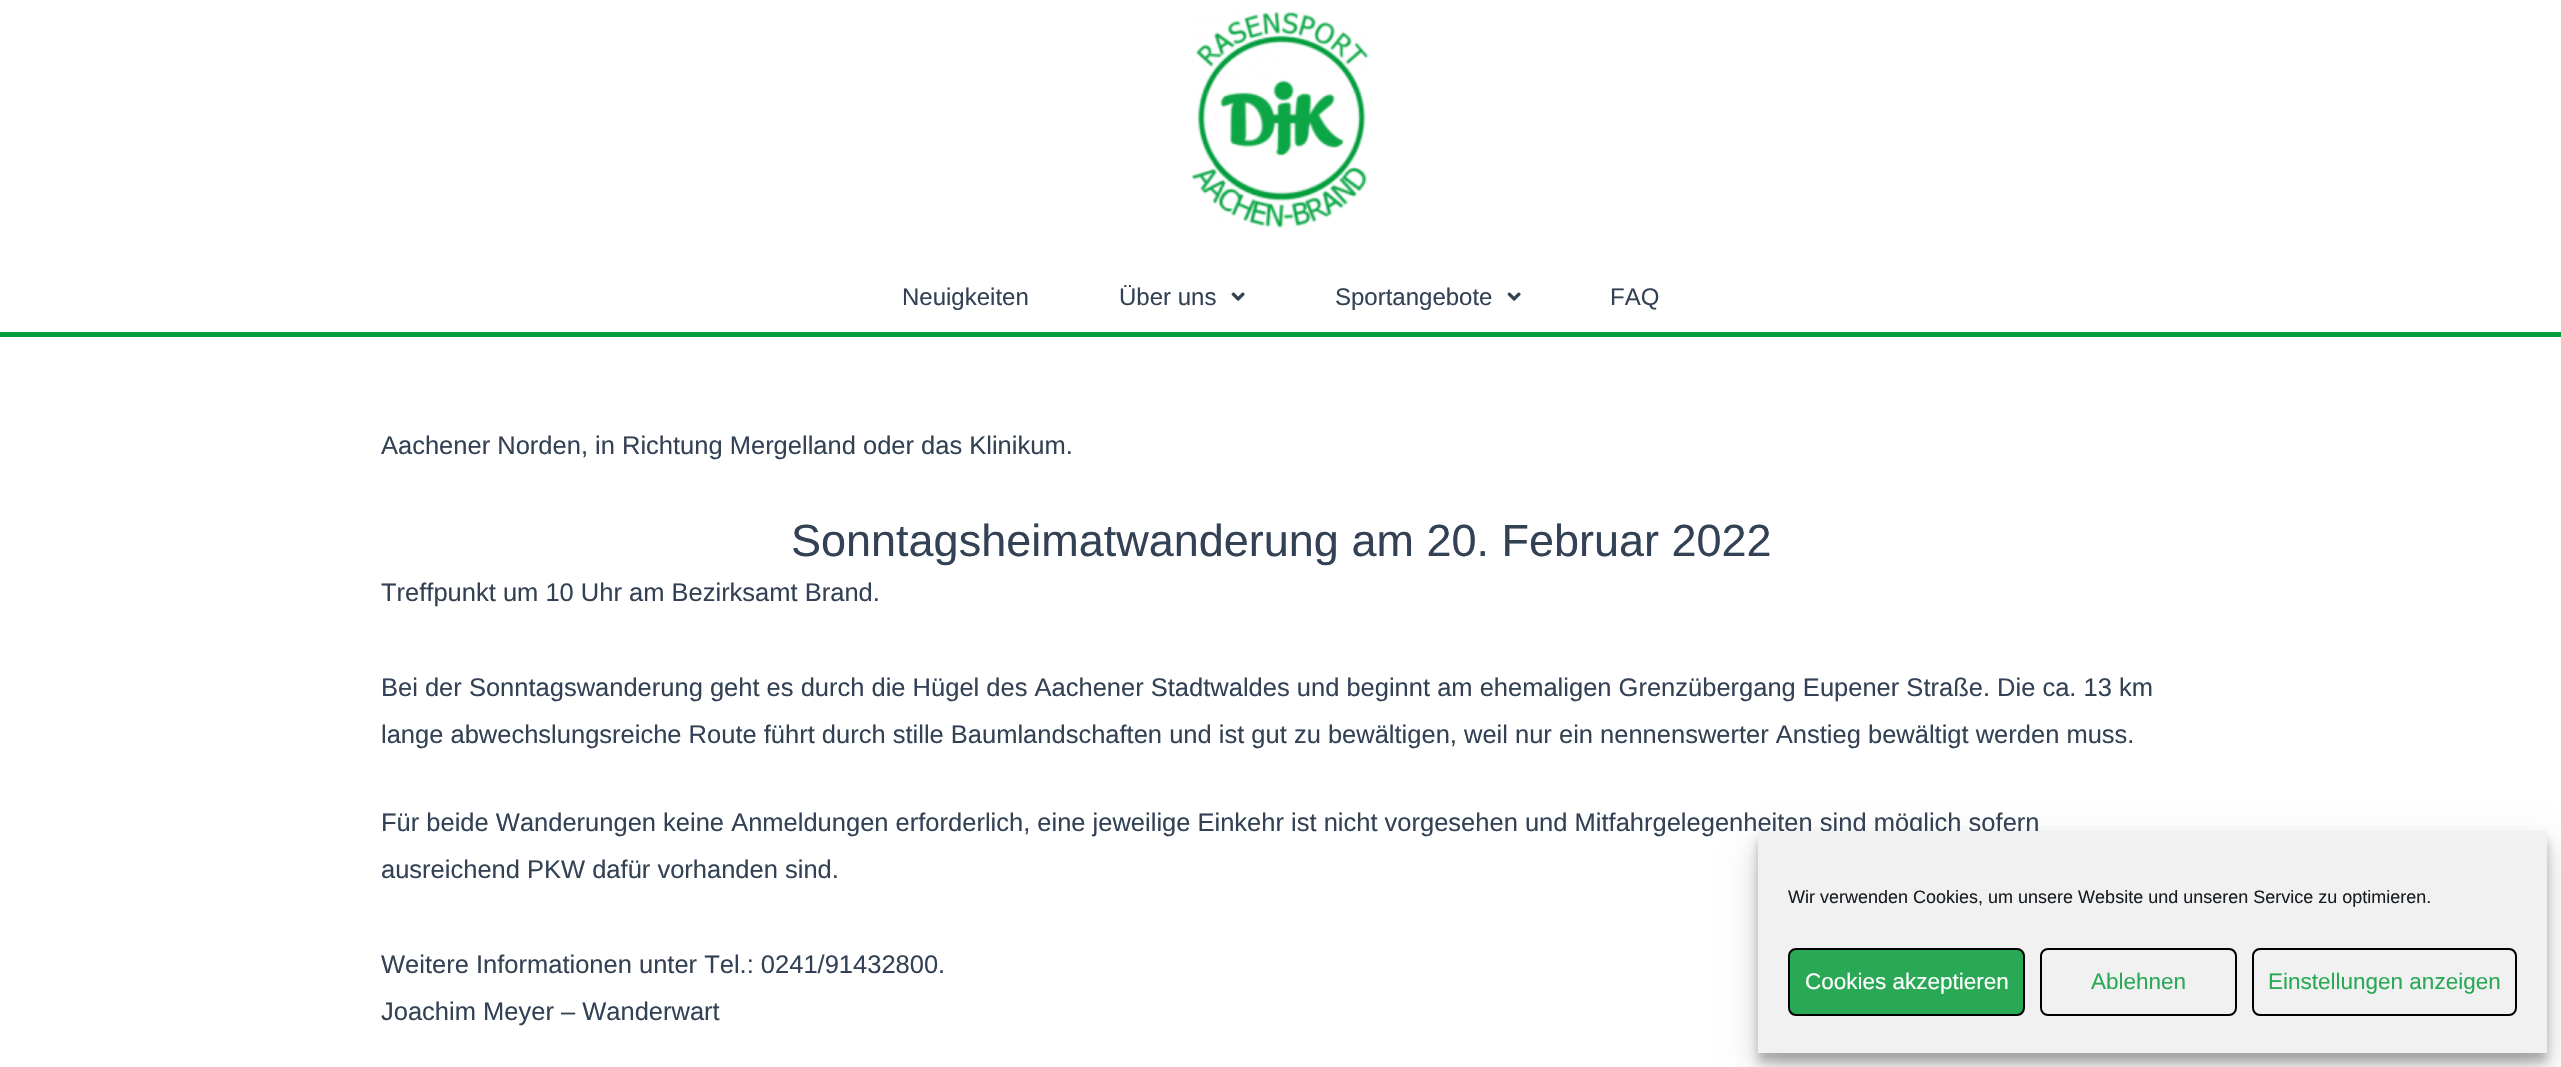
void draw(SkCanvas* canvas) {
	SkPaint fill;
	fill.setAntiAlias(true);
	auto makeFont = [&](const char* family, int weight, float size, bool italic = false) {
		SkFontStyle style(weight, SkFontStyle::kNormal_Width,
			italic ? SkFontStyle::kItalic_Slant : SkFontStyle::kUpright_Slant);
		SkFont result(fontMgr->matchFamilyStyle(family, style), size);
		result.setSubpixel(true);
		return result;
	};
	auto text = [&](const char* s, float x, float y, const SkFont& font) {
		canvas->drawString(s, x, y, font, fill);
	};
	auto box = [&](float l, float t, float r, float b) {
		canvas->drawRect(SkRect::MakeLTRB(l, t, r, b), fill);
	};
	auto picture = [&](const char* path, float l, float t, float r, float b) {
		auto image = SkImages::DeferredFromEncodedData(SkData::MakeFromFileName(path));
		canvas->drawImageRect(image, SkRect::MakeLTRB(l, t, r, b), SkSamplingOptions());
	};
	canvas->clear(0xFFFFFFFF);
	picture("image0.png", 1191, 11, 1369, 229);
	fill.setColor(0xFF029D3D);
	box(0, 332, 2561, 337);
	picture("image1.png", 1231, 292, 1245, 301);
	picture("image1.png", 1507, 292, 1521, 301);
	fill.setColor(0x3B000000);
	fill.setMaskFilter(SkMaskFilter::MakeBlur(kNormal_SkBlurStyle, 4.5f));
	canvas->drawRect(SkRect::MakeLTRB(1758, 840, 2547, 1062), fill);
	fill.setMaskFilter(nullptr);
	fill.setColor(0x30000000);
	fill.setMaskFilter(SkMaskFilter::MakeBlur(kNormal_SkBlurStyle, 15));
	canvas->drawRect(SkRect::MakeLTRB(1758, 846, 2547, 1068), fill);
	fill.setMaskFilter(nullptr);
	auto font1 = makeFont("Liberation Sans", 400, 24);
	fill.setColor(0xFF334155);
	text("Neuigkeiten", 902, 305, font1);
	text("Über uns", 1119, 305, font1);
	text("Sportangebote", 1335, 305, font1);
	text("FAQ", 1610, 305, font1);
	auto font2 = makeFont("Liberation Sans", 400, 25.5f);
	text("Aachener Norden, in Richtung Mergelland oder das Klinikum.", 381, 454, font2);
	auto font3 = makeFont("Liberation Sans", 400, 45);
	text("Sonntagsheimatwanderung am 20. Februar 2022", 791, 556, font3);
	text("Treffpunkt um 10 Uhr am Bezirksamt Brand.", 381, 601, font2);
	text("Bei der Sonntagswanderung geht es durch die Hügel des Aachener Stadtwaldes und beginnt am ehemaligen Grenzübergang Eupener Straße. Die ca. 13 km", 381, 696, font2);
	text("lange abwechslungsreiche Route führt durch stille Baumlandschaften und ist gut zu bewältigen, weil nur ein nennenswerter Anstieg bewältigt werden muss.", 381, 743, font2);
	text("Für beide Wanderungen keine Anmeldungen erforderlich, eine jeweilige Einkehr ist nicht vorgesehen und Mitfahrgelegenheiten sind möglich sofern", 381, 831, font2);
	text("ausreichend PKW dafür vorhanden sind.", 381, 878, font2);
	text("Weitere Informationen unter Tel.: 0241/91432800.", 381, 973, font2);
	text("Joachim Meyer – Wanderwart", 381, 1020, font2);
	fill.setColor(0xFFF1F1F1);
	box(1758, 831, 2547, 1053);
	auto font4 = makeFont("Liberation Sans", 400, 18);
	fill.setColor(0xFF191E23);
	text("Wir verwenden Cookies, um unsere Website und unseren Service zu optimieren.", 1788, 903, font4);
	fill.setColor(0xFF29A855);
	canvas->drawRoundRect(SkRect::MakeLTRB(1789, 949, 2024, 1015), 7, 7, fill);
	fill.setStyle(SkPaint::kStroke_Style);
	fill.setStrokeWidth(2);
	fill.setColor(0xFF000000);
	canvas->drawRoundRect(SkRect::MakeLTRB(1789, 949, 2024, 1015), 7, 7, fill);
	auto font5 = makeFont("Liberation Sans", 400, 22.5f);
	fill.setStyle(SkPaint::kFill_Style);
	fill.setColor(0xFFFFFFFF);
	text("Cookies akzeptieren", 1805, 989, font5);
	fill.setStyle(SkPaint::kStroke_Style);
	fill.setColor(0xFF000000);
	canvas->drawRoundRect(SkRect::MakeLTRB(2041, 949, 2236, 1015), 7, 7, fill);
	fill.setStyle(SkPaint::kFill_Style);
	fill.setColor(0xFF29A855);
	text("Ablehnen", 2091, 989, font5);
	fill.setStyle(SkPaint::kStroke_Style);
	fill.setColor(0xFF000000);
	canvas->drawRoundRect(SkRect::MakeLTRB(2253, 949, 2516, 1015), 7, 7, fill);
	fill.setStyle(SkPaint::kFill_Style);
	fill.setColor(0xFF29A855);
	text("Einstellungen anzeigen", 2268, 989, font5);
}
